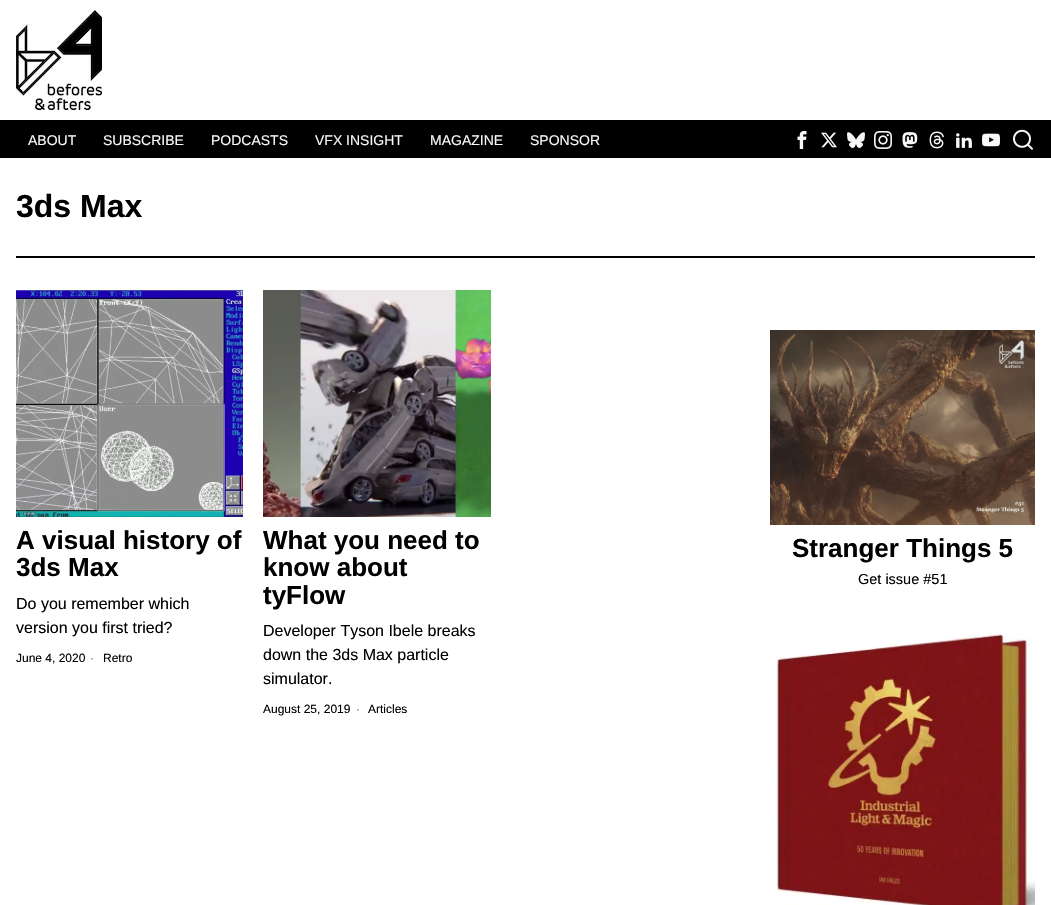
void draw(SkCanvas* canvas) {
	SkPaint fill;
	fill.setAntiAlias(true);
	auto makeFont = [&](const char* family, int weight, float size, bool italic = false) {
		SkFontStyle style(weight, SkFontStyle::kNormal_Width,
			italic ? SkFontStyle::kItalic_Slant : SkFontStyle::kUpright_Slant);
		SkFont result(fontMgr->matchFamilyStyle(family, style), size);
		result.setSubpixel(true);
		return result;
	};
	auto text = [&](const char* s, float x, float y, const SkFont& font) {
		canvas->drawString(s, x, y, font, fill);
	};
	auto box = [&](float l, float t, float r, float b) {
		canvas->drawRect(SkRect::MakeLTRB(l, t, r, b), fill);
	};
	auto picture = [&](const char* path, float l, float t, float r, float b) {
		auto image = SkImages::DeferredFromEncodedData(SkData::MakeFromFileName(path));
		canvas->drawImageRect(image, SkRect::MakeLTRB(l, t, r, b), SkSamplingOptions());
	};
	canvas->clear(0xFFFFFFFF);
	picture("image0.png", 16, 10, 102, 110);
	fill.setColor(0xFF000000);
	box(0, 120, 1051, 158);
	picture("image1.png", 797, 131, 807, 149);
	picture("image2.png", 821, 132, 837, 148);
	picture("image3.png", 847, 132, 865, 148);
	picture("image4.png", 874, 131, 892, 149);
	picture("image5.png", 902, 132, 918, 148);
	picture("image6.png", 929, 131, 944, 149);
	picture("image7.png", 956, 133, 972, 148);
	picture("image8.png", 982, 133, 1000, 147);
	picture("image9.png", 1013, 129, 1033, 150);
	box(16, 256, 1035, 258);
	picture("image10.png", 16, 290, 243, 517);
	picture("image11.png", 263, 290, 491, 517);
	picture("image12.png", 770, 330, 1035, 525);
	picture("image13.png", 775, 631, 1035, 905);
	auto font1 = makeFont("Liberation Sans", 400, 14);
	fill.setColor(0xFFFAF9F9);
	text("ABOUT", 28, 145, font1);
	text("SUBSCRIBE", 103, 145, font1);
	text("PODCASTS", 211, 145, font1);
	text("VFX INSIGHT", 315, 145, font1);
	text("MAGAZINE", 430, 145, font1);
	text("SPONSOR", 530, 145, font1);
	auto font2 = makeFont("Liberation Sans", 700, 32);
	fill.setColor(0xFF000000);
	text("3ds Max", 16, 217, font2);
	auto font3 = makeFont("Liberation Sans", 700, 26);
	text("A visual history of", 16, 549, font3);
	text("3ds Max", 16, 576, font3);
	auto font4 = makeFont("Liberation Sans", 400, 16);
	text("Do you remember which", 16, 609, font4);
	text("version you first tried?", 16, 633, font4);
	auto font5 = makeFont("Liberation Sans", 400, 12);
	text("June 4, 2020", 16, 662, font5);
	fill.setColor(0xFF808080);
	text("·", 90, 662, font5);
	fill.setColor(0xFF000000);
	text("Retro", 103, 662, font5);
	text("What you need to", 263, 549, font3);
	text("know about", 263, 576, font3);
	text("tyFlow", 263, 604, font3);
	text("Developer Tyson Ibele breaks", 263, 636, font4);
	text("down the 3ds Max particle", 263, 660, font4);
	text("simulator.", 263, 684, font4);
	text("August 25, 2019", 263, 713, font5);
	fill.setColor(0xFF808080);
	text("·", 356, 713, font5);
	fill.setColor(0xFF000000);
	text("Articles", 368, 713, font5);
	text("Stranger Things 5", 792, 557, font3);
	auto font6 = makeFont("Liberation Sans", 400, 14.5f);
	text("Get issue #51", 858, 584, font6);
}
